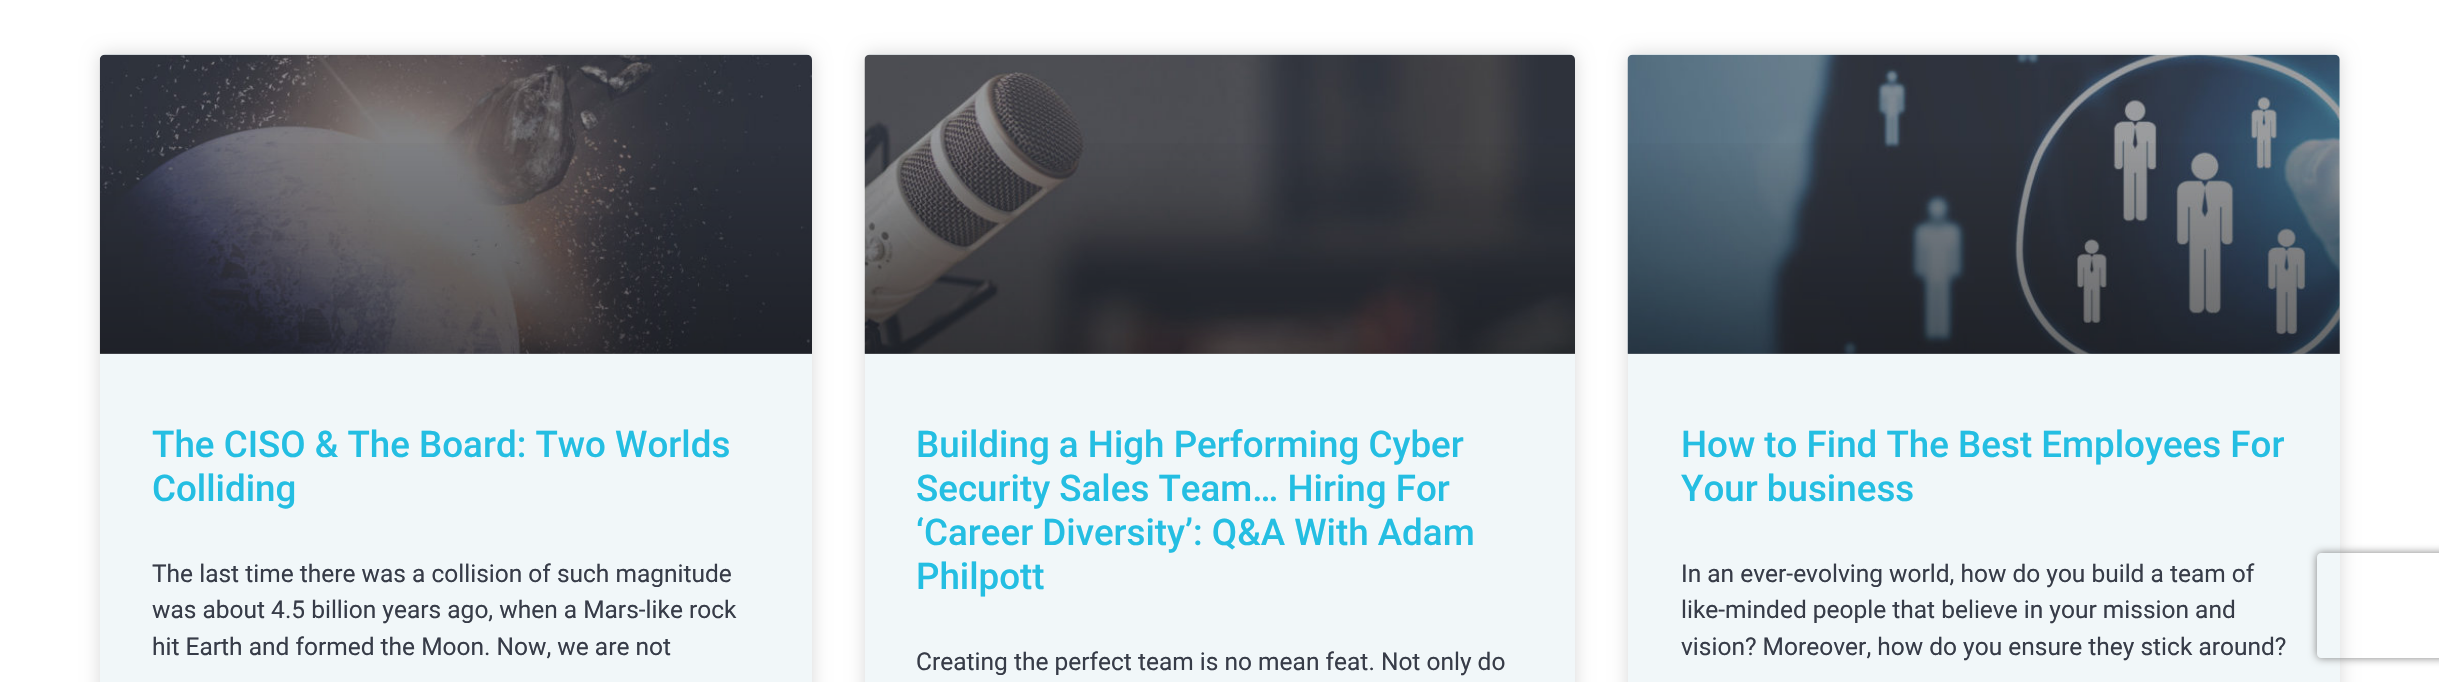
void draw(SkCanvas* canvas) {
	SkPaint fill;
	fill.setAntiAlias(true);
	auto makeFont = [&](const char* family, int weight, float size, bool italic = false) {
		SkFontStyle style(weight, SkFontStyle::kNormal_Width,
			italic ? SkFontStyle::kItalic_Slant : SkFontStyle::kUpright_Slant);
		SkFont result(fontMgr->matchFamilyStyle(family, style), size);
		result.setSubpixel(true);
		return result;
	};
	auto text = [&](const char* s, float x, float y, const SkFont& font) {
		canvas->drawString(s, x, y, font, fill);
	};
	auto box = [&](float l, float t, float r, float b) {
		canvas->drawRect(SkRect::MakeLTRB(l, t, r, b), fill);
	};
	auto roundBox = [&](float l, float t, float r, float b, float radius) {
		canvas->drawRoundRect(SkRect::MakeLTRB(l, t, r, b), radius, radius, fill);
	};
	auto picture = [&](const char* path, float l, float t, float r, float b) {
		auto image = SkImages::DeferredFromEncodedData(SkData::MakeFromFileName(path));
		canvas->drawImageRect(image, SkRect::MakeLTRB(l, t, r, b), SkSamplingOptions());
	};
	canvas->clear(0xFFFFFFFF);
	fill.setColor(0x26000000);
	fill.setMaskFilter(SkMaskFilter::MakeBlur(kNormal_SkBlurStyle, 9));
	canvas->drawRoundRect(SkRect::MakeLTRB(100, 54, 812, 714), 5, 5, fill);
	fill.setMaskFilter(nullptr);
	fill.setColor(0xFFF1F7F9);
	roundBox(100, 54, 812, 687, 5);
	picture("image0.png", 99, 54, 812, 354);
	{
		const SkColor colors[] = {0x59000000, 0x00000000};
		const float stops[] = {0, 0.75f};
		const SkPoint ends[] = {{456, 354}, {456, 54}};
		fill.setShader(SkGradientShader::MakeLinear(ends, colors, stops, 2, SkTileMode::kClamp));
		fill.setAlpha(255);
	}
	box(100, 143, 812, 354);
	fill.setShader(nullptr);
	fill.setColor(0x26000000);
	fill.setMaskFilter(SkMaskFilter::MakeBlur(kNormal_SkBlurStyle, 9));
	canvas->drawRoundRect(SkRect::MakeLTRB(865, 54, 1575, 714), 5, 5, fill);
	fill.setMaskFilter(nullptr);
	fill.setColor(0xFFF1F7F9);
	roundBox(865, 54, 1575, 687, 5);
	picture("image1.png", 864, 54, 1575, 354);
	{
		const SkColor colors[] = {0x59000000, 0x00000000};
		const float stops[] = {0, 0.75f};
		const SkPoint ends[] = {{1220, 354}, {1220, 54}};
		fill.setShader(SkGradientShader::MakeLinear(ends, colors, stops, 2, SkTileMode::kClamp));
		fill.setAlpha(255);
	}
	box(865, 143, 1575, 354);
	fill.setShader(nullptr);
	fill.setColor(0x26000000);
	fill.setMaskFilter(SkMaskFilter::MakeBlur(kNormal_SkBlurStyle, 9));
	canvas->drawRoundRect(SkRect::MakeLTRB(1628, 54, 2340, 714), 5, 5, fill);
	fill.setMaskFilter(nullptr);
	fill.setColor(0xFFF1F7F9);
	roundBox(1628, 54, 2340, 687, 5);
	picture("image2.png", 1627, 54, 2340, 354);
	{
		const SkColor colors[] = {0x59000000, 0x00000000};
		const float stops[] = {0, 0.75f};
		const SkPoint ends[] = {{1984, 354}, {1984, 54}};
		fill.setShader(SkGradientShader::MakeLinear(ends, colors, stops, 2, SkTileMode::kClamp));
		fill.setAlpha(255);
	}
	box(1628, 143, 2340, 354);
	canvas->save();
	canvas->clipPath(SkPathBuilder(SkPathFillType::kEvenOdd).moveTo(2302, 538).lineTo(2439, 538).lineTo(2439, 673).lineTo(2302, 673).close().moveTo(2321, 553).lineTo(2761, 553).cubicTo(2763, 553, 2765, 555, 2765, 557).lineTo(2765, 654).cubicTo(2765, 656, 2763, 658, 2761, 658).lineTo(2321, 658).cubicTo(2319, 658, 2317, 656, 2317, 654).lineTo(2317, 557).cubicTo(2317, 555, 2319, 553, 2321, 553).close().detach(), true);
	fill.setShader(nullptr);
	fill.setColor(0xFF808080);
	fill.setMaskFilter(SkMaskFilter::MakeBlur(kNormal_SkBlurStyle, 4.5f));
	canvas->drawRoundRect(SkRect::MakeLTRB(2317, 553, 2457, 658), 4, 4, fill);
	fill.setMaskFilter(nullptr);
	canvas->restore();
	auto font1 = makeFont("Roboto", 500, 36.75f);
	fill.setColor(0xFF24BEE2);
	text("The CISO & The Board: Two Worlds", 152, 457, font1);
	text("Colliding", 152, 501, font1);
	auto font2 = makeFont("Roboto", 400, 24.5f);
	fill.setColor(0xFF373C48);
	text("The last time there was a collision of such magnitude", 152, 582, font2);
	text("was about 4.5 billion years ago, when a Mars-like rock", 152, 618, font2);
	text("hit Earth and formed the Moon. Now, we are not", 152, 655, font2);
	fill.setColor(0xFF24BEE2);
	text("Building a High Performing Cyber", 916, 457, font1);
	text("Security Sales Team… Hiring For", 916, 501, font1);
	text("‘Career Diversity’: Q&A With Adam", 916, 545, font1);
	text("Philpott", 916, 589, font1);
	fill.setColor(0xFF373C48);
	text("Creating the perfect team is no mean feat. Not only do", 916, 670, font2);
	fill.setColor(0xFF24BEE2);
	text("How to Find The Best Employees For", 1681, 457, font1);
	text("Your business", 1681, 501, font1);
	fill.setColor(0xFF373C48);
	text("In an ever-evolving world, how do you build a team of", 1681, 582, font2);
	text("like-minded people that believe in your mission and", 1681, 618, font2);
	text("vision? Moreover, how do you ensure they stick around?", 1681, 655, font2);
}
